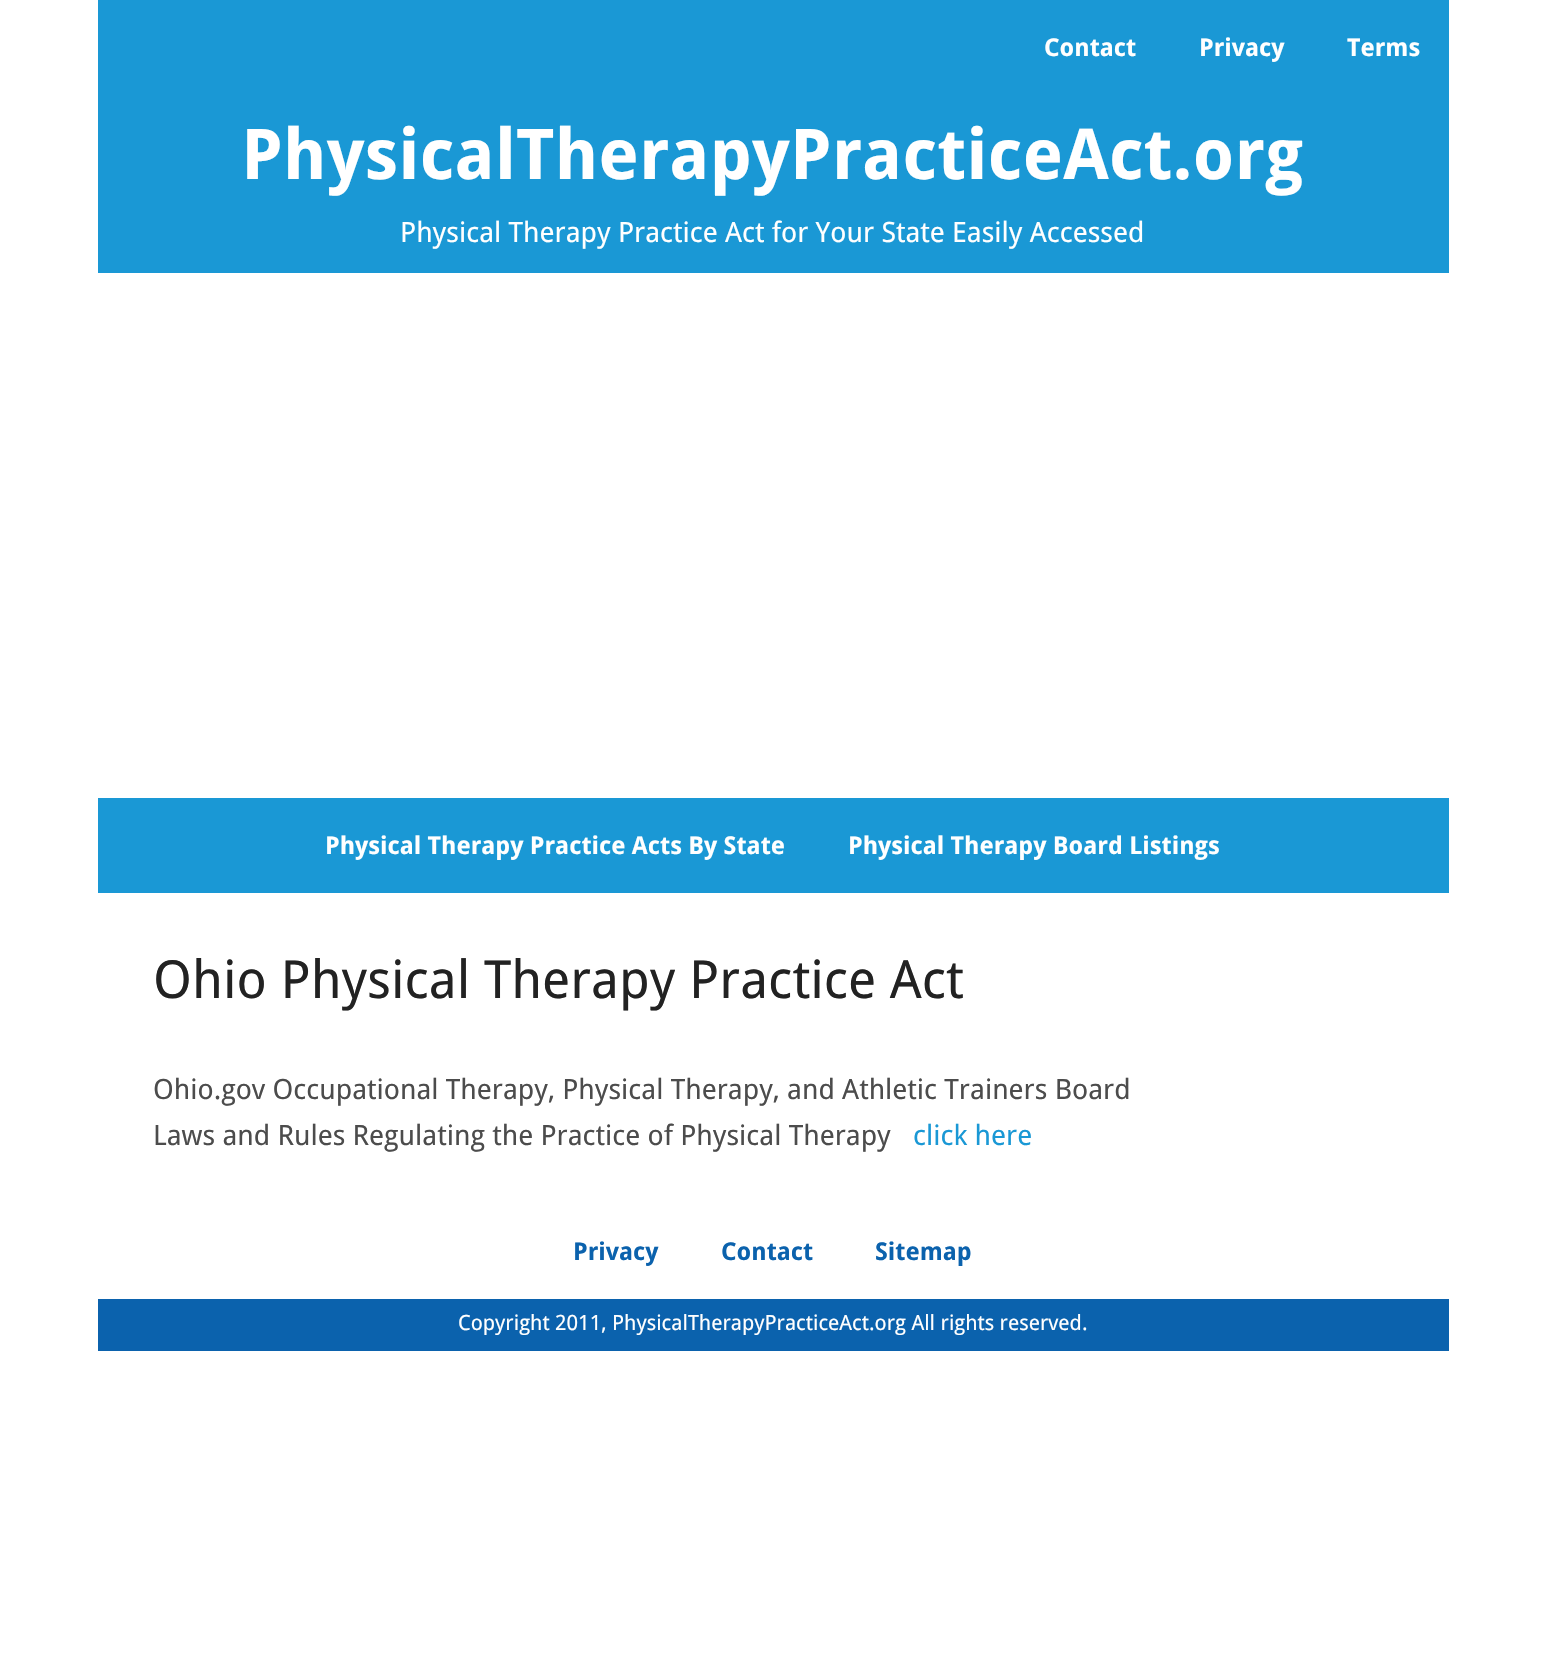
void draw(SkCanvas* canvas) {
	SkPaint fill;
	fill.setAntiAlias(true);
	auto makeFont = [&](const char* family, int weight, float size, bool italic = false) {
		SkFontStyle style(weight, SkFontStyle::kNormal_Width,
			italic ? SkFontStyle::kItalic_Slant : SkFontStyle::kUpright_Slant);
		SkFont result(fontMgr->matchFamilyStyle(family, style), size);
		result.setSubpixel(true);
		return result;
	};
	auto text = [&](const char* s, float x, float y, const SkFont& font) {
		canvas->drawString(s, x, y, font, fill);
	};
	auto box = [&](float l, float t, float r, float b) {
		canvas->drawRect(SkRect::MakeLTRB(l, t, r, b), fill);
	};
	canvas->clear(0xFFFFFFFF);
	fill.setColor(0xFF1A98D5);
	box(98, 0, 1449, 273);
	box(98, 798, 1449, 893);
	fill.setColor(0xFF0B62AD);
	box(98, 1299, 1449, 1351);
	auto font1 = makeFont("Droid Sans", 700, 24.5f);
	fill.setColor(0xFFFFFFFF);
	text("Contact", 1044, 56, font1);
	text("Privacy", 1199, 56, font1);
	text("Terms", 1347, 56, font1);
	auto font2 = makeFont("Droid Sans", 700, 70);
	text("PhysicalTherapyPracticeAct.org", 241, 179, font2);
	auto font3 = makeFont("Droid Sans", 400, 28);
	text("Physical Therapy Practice Act for Your State Easily Accessed", 400, 242, font3);
	text("Physical Therapy Practice Acts By State", 325, 854, font1);
	text("Physical Therapy Board Listings", 848, 854, font1);
	auto font4 = makeFont("Droid Sans", 400, 52.5f);
	fill.setColor(0xFF222222);
	text("Ohio Physical Therapy Practice Act", 153, 998, font4);
	fill.setColor(0xFF4C4C4C);
	text("Ohio.gov Occupational Therapy, Physical Therapy, and Athletic Trainers Board", 153, 1099, font3);
	text("Laws and Rules Regulating the Practice of Physical Therapy", 153, 1145, font3);
	fill.setColor(0xFF1A98D5);
	text("click here", 913, 1145, font3);
	fill.setColor(0xFF0B62AD);
	text("Privacy", 573, 1260, font1);
	text("Contact", 721, 1260, font1);
	text("Sitemap", 875, 1260, font1);
	auto font5 = makeFont("Droid Sans", 400, 21);
	fill.setColor(0xFFFFFFFF);
	text("Copyright 2011, PhysicalTherapyPracticeAct.org All rights reserved.", 458, 1330, font5);
}
